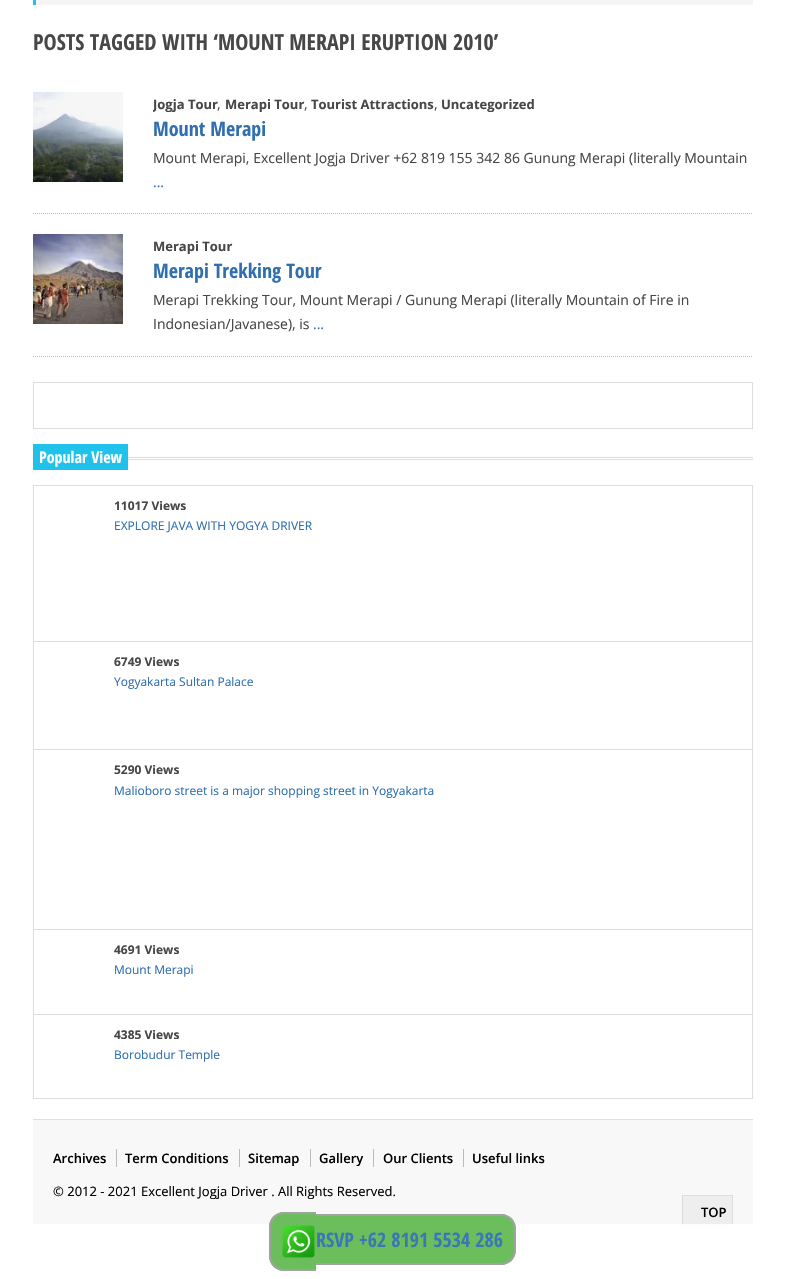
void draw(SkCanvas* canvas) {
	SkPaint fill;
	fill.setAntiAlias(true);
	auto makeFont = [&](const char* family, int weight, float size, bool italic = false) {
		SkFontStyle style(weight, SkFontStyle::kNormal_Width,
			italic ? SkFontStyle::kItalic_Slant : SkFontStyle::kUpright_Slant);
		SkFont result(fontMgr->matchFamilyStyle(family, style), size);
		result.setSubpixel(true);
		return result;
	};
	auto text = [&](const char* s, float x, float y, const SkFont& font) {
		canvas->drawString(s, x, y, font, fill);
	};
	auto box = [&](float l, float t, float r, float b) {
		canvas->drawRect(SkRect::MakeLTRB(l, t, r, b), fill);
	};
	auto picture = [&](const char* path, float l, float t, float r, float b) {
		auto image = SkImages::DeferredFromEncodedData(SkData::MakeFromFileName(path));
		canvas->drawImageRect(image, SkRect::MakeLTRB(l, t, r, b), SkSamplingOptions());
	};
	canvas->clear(0xFFFFFFFF);
	fill.setColor(0xFFF5F5F5);
	box(36, 0, 753, 5);
	fill.setColor(0xFF20C1EA);
	box(33, 0, 36, 5);
	fill.setStyle(SkPaint::kStroke_Style);
	fill.setStrokeWidth(1);
	fill.setColor(0xFFBBBBBB);
	fill.setPathEffect(SkDashPathEffect::Make({{1, 1}}, 0));
	canvas->drawPath(SkPathBuilder().moveTo(33, 213.5f).lineTo(753, 213.5f).detach(), fill);
	fill.setPathEffect(nullptr);
	picture("image0.png", 33, 92, 123, 182);
	fill.setPathEffect(SkDashPathEffect::Make({{1, 1}}, 0));
	canvas->drawPath(SkPathBuilder().moveTo(33, 356.5f).lineTo(753, 356.5f).detach(), fill);
	fill.setPathEffect(nullptr);
	picture("image1.png", 33, 234, 123, 324);
	fill.setColor(0xFFDDDDDD);
	canvas->drawRect(SkRect::MakeLTRB(33.5f, 382.5f, 752.5f, 428.5f), fill);
	fill.setStyle(SkPaint::kFill_Style);
	fill.setColor(0xFF20C1EA);
	box(33, 444, 128, 470);
	fill.setColor(0xFFDDDDDD);
	box(128, 457, 753, 458);
	box(128, 459, 753, 460);
	fill.setStyle(SkPaint::kStroke_Style);
	canvas->drawRect(SkRect::MakeLTRB(33.5f, 485.5f, 752.5f, 641.5f), fill);
	canvas->drawRect(SkRect::MakeLTRB(33.5f, 641.5f, 752.5f, 749.5f), fill);
	canvas->drawRect(SkRect::MakeLTRB(33.5f, 749.5f, 752.5f, 929.5f), fill);
	canvas->drawRect(SkRect::MakeLTRB(33.5f, 929.5f, 752.5f, 1014.5f), fill);
	canvas->drawRect(SkRect::MakeLTRB(33.5f, 1014.5f, 752.5f, 1098.5f), fill);
	fill.setStyle(SkPaint::kFill_Style);
	fill.setColor(0xFFF8F8F8);
	box(33, 1120, 753, 1249);
	fill.setColor(0xFFE0E0E0);
	box(33, 1119, 753, 1120);
	fill.setColor(0xFFBBBBBB);
	box(116, 1149, 117, 1167);
	box(239, 1149, 240, 1167);
	box(310, 1149, 311, 1167);
	box(373, 1149, 374, 1167);
	box(463, 1149, 464, 1167);
	fill.setColor(0xFFEEEEEE);
	canvas->drawRect(SkRect::MakeLTRB(682.5f, 1195.5f, 732.5f, 1228.5f), fill);
	fill.setStyle(SkPaint::kStroke_Style);
	fill.setColor(0xFFDDDDDD);
	canvas->drawRect(SkRect::MakeLTRB(682.5f, 1195.5f, 732.5f, 1228.5f), fill);
	fill.setStyle(SkPaint::kFill_Style);
	fill.setColor(0xF0FFFFFF);
	box(33, 1224, 753, 1249);
	fill.setColor(0xF063BA53);
	canvas->drawPath(SkPathBuilder().moveTo(284, 1212).lineTo(316, 1212).lineTo(316, 1271).lineTo(284, 1271).cubicTo(275.5f, 1271, 269, 1264.5f, 269, 1256).lineTo(269, 1227).cubicTo(269, 1218.5f, 275.5f, 1212, 284, 1212).close().detach(), fill);
	fill.setColor(0xF0A1A1A1);
	canvas->drawPath(SkPathBuilder(SkPathFillType::kEvenOdd).moveTo(284, 1212).lineTo(316, 1212).lineTo(316, 1271).lineTo(284, 1271).cubicTo(276, 1271, 269, 1264, 269, 1256).lineTo(269, 1227).cubicTo(269, 1219, 276, 1212, 284, 1212).close().moveTo(284, 1214).lineTo(316, 1214).lineTo(316, 1269).lineTo(284, 1269).cubicTo(277, 1269, 271, 1263, 271, 1256).lineTo(271, 1227).cubicTo(271, 1220, 277, 1214, 284, 1214).close().detach(), fill);
	picture("image2.png", 282, 1225, 315, 1258);
	fill.setColor(0xF063BA53);
	canvas->drawPath(SkPathBuilder().moveTo(316, 1214).lineTo(501, 1214).cubicTo(509.5f, 1214, 516, 1220.5f, 516, 1229).lineTo(516, 1250).cubicTo(516, 1258.5f, 509.5f, 1265, 501, 1265).lineTo(316, 1265).close().detach(), fill);
	fill.setColor(0xF0A1A1A1);
	canvas->drawPath(SkPathBuilder(SkPathFillType::kEvenOdd).moveTo(316, 1214).lineTo(501, 1214).cubicTo(509, 1214, 516, 1221, 516, 1229).lineTo(516, 1250).cubicTo(516, 1258, 509, 1265, 501, 1265).lineTo(316, 1265).close().moveTo(316, 1216).lineTo(501, 1216).cubicTo(508, 1216, 514, 1222, 514, 1229).lineTo(514, 1250).cubicTo(514, 1257, 508, 1263, 501, 1263).lineTo(316, 1263).close().detach(), fill);
	auto font1 = makeFont("Open Sans Condensed", 700, 22);
	fill.setColor(0xFF474747);
	text("POSTS TAGGED WITH ‘MOUNT MERAPI ERUPTION 2010’", 33, 50, font1);
	canvas->save();
	canvas->clipRect(SkRect::MakeLTRB(153, 92, 753, 193));
	auto font2 = makeFont("Open Sans", 700, 13);
	text("Jogja Tour", 153, 109, font2);
	canvas->restore();
	auto font3 = makeFont("Open Sans", 400, 14);
	text(",", 217, 109, font3);
	text("Merapi Tour", 225, 109, font2);
	text(",", 304, 109, font3);
	text("Tourist Attractions", 311, 109, font2);
	text(",", 434, 109, font3);
	text("Uncategorized", 441, 109, font2);
	auto font4 = makeFont("Open Sans Condensed", 700, 20);
	fill.setColor(0xFF2F6FB0);
	text("Mount Merapi", 153, 136, font4);
	fill.setColor(0xFF474747);
	text("Mount Merapi, Excellent Jogja Driver +62 819 155 342 86 Gunung Merapi (literally Mountain", 153, 163, font3);
	fill.setColor(0xFF2F6FB0);
	text("...", 153, 187, font3);
	fill.setColor(0xFF474747);
	text("Merapi Tour", 153, 251, font2);
	fill.setColor(0xFF2F6FB0);
	text("Merapi Trekking Tour", 153, 278, font4);
	fill.setColor(0xFF474747);
	text("Merapi Trekking Tour, Mount Merapi / Gunung Merapi (literally Mountain of Fire in", 153, 305, font3);
	text("Indonesian/Javanese), is", 153, 329, font3);
	fill.setColor(0xFF2F6FB0);
	text("...", 313, 329, font3);
	auto font5 = makeFont("Open Sans Condensed", 700, 16);
	fill.setColor(0xFFFFFFFF);
	text("Popular View", 39, 463, font5);
	auto font6 = makeFont("Open Sans", 700, 12);
	fill.setColor(0xFF474747);
	text("11017 Views", 114, 510, font6);
	auto font7 = makeFont("Open Sans", 400, 12);
	fill.setColor(0xFF2F6FB0);
	text("EXPLORE JAVA WITH YOGYA DRIVER", 114, 530, font7);
	fill.setColor(0xFF474747);
	text("6749 Views", 114, 666, font6);
	fill.setColor(0xFF2F6FB0);
	text("Yogyakarta Sultan Palace", 114, 686, font7);
	fill.setColor(0xFF474747);
	text("5290 Views", 114, 774, font6);
	fill.setColor(0xFF2F6FB0);
	text("Malioboro street is a major shopping street in Yogyakarta", 114, 795, font7);
	fill.setColor(0xFF474747);
	text("4691 Views", 114, 954, font6);
	fill.setColor(0xFF2F6FB0);
	text("Mount Merapi", 114, 974, font7);
	fill.setColor(0xFF474747);
	text("4385 Views", 114, 1039, font6);
	fill.setColor(0xFF2F6FB0);
	text("Borobudur Temple", 114, 1059, font7);
	auto font8 = makeFont("Open Sans", 600, 13);
	fill.setColor(0xFF000000);
	text("Archives", 53, 1163, font8);
	text("Term Conditions", 125, 1163, font8);
	text("Sitemap", 248, 1163, font8);
	text("Gallery", 319, 1163, font8);
	text("Our Clients", 383, 1163, font8);
	text("Useful links", 472, 1163, font8);
	auto font9 = makeFont("Open Sans", 400, 13);
	text("© 2012 - 2021 Excellent Jogja Driver . All Rights Reserved.", 53, 1196, font9);
	text("TOP", 701, 1217, font8);
	fill.setColor(0xFF3B77B4);
	text("RSVP +62 8191 5534 286", 316, 1247, font4);
}
